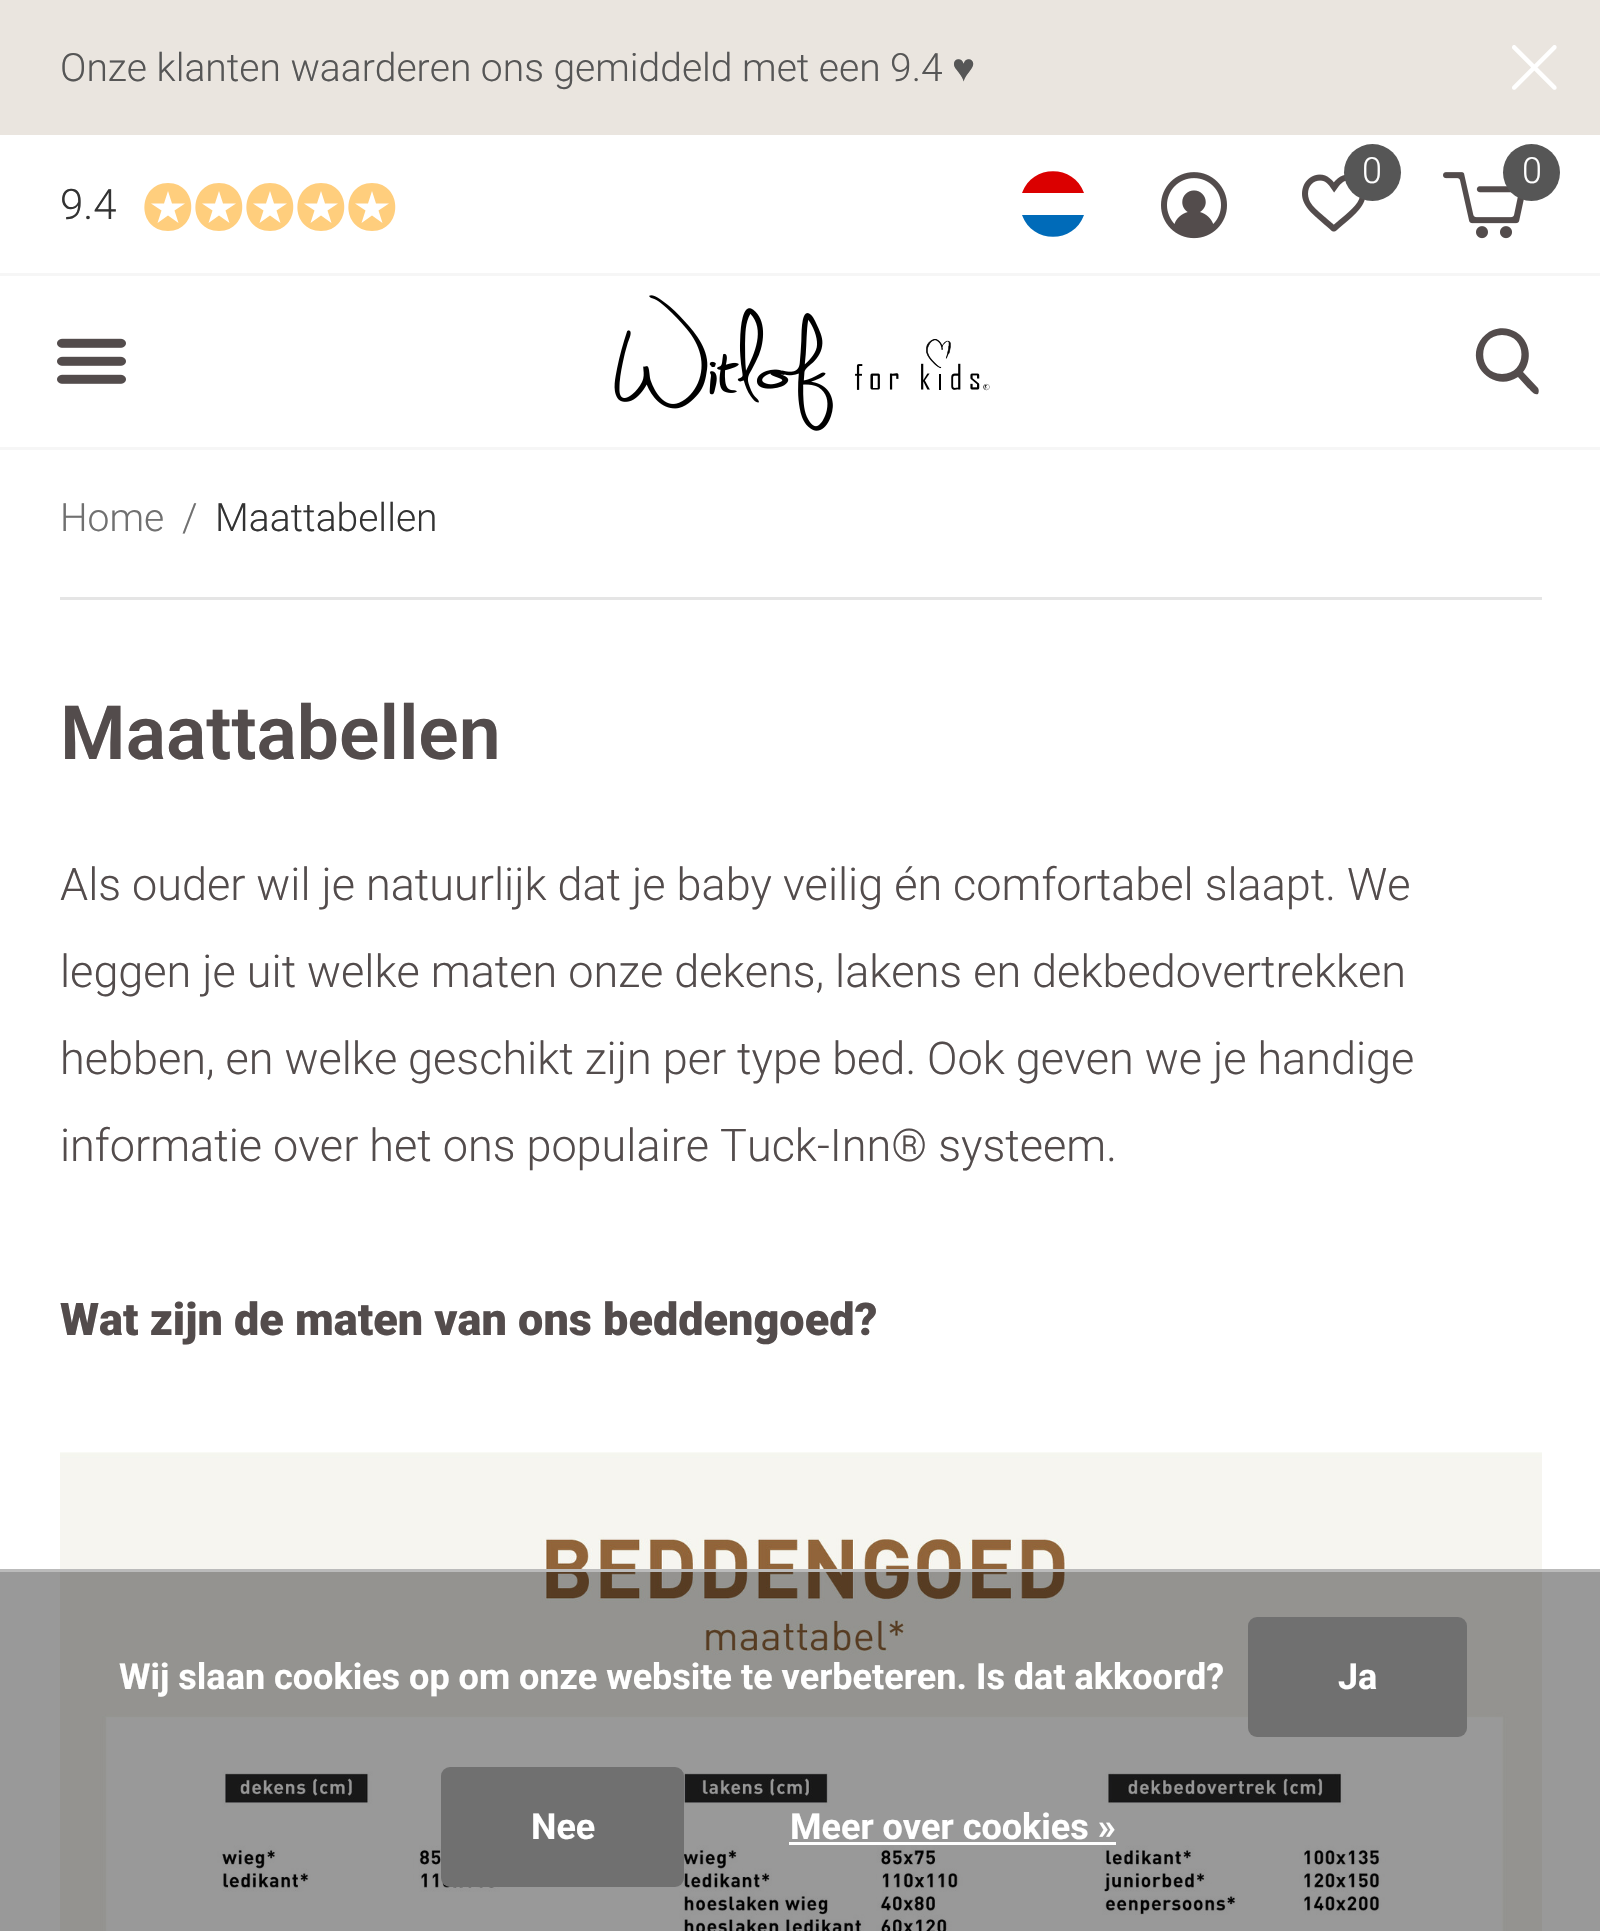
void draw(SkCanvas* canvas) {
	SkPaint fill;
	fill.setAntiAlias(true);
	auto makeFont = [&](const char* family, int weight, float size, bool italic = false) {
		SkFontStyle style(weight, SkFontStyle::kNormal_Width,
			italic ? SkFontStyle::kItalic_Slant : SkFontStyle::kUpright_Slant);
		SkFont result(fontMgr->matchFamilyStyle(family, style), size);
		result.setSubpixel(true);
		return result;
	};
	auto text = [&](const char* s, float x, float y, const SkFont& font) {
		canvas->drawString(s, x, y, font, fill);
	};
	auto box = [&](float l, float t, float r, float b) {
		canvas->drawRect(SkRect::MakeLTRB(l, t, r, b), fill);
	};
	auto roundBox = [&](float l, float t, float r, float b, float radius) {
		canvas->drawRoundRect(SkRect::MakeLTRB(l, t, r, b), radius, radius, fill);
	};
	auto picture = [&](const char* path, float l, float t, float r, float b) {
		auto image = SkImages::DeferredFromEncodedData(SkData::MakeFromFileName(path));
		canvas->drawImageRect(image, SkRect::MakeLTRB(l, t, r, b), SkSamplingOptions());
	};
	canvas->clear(0xFFFFFFFF);
	fill.setColor(0xFFEAE5DF);
	box(0, 0, 1600, 135);
	picture("image0.png", 1512, 45, 1557, 90);
	fill.setColor(0xFFDB0000);
	canvas->drawPath(SkPathBuilder().moveTo(1022, 193).cubicTo(1032, 164, 1074, 164, 1084, 193).close().detach(), fill);
	fill.setColor(0xFF006BB9);
	canvas->drawPath(SkPathBuilder().moveTo(1084, 215).cubicTo(1074, 244, 1032, 244, 1022, 215).close().detach(), fill);
	picture("image1.png", 1161, 172, 1227, 239);
	picture("image2.png", 1302, 174, 1365, 232);
	fill.setColor(0xFF565656);
	canvas->drawCircle(1372.5f, 172.5f, 28.5f, fill);
	picture("image3.png", 1443, 172, 1524, 239);
	canvas->drawCircle(1531.5f, 172.5f, 28.5f, fill);
	fill.setColor(0xFF534C4C);
	canvas->drawPath(SkPathBuilder().moveTo(1538, 388).lineTo(1523, 372).cubicTo(1533, 360, 1530, 340, 1516, 332).cubicTo(1509, 328, 1501, 327, 1493, 330).cubicTo(1488, 332, 1483, 336, 1480, 341).cubicTo(1465, 365, 1494, 393, 1518, 377).lineTo(1528, 388).cubicTo(1530, 389, 1534, 396, 1538, 394).cubicTo(1539, 392, 1539, 390, 1538, 388).close().moveTo(1502, 374).cubicTo(1477, 374, 1477, 335, 1502, 335).cubicTo(1528, 335, 1528, 374, 1502, 374).close().detach(), fill);
	fill.setColor(0xFFFFCE7D);
	canvas->drawPath(SkPathBuilder().moveTo(168, 231).cubicTo(136, 231, 137, 183, 168, 183).cubicTo(199, 183, 199, 231, 168, 231).close().detach(), fill);
	fill.setColor(0xFFFFFFFF);
	canvas->drawPath(SkPathBuilder().moveTo(168, 191).lineTo(172, 203.5f).lineTo(185, 203.5f).lineTo(174.5f, 210.5f).lineTo(178.5f, 223).lineTo(168, 215.5f).lineTo(157.5f, 223).lineTo(161.5f, 210.5f).lineTo(151, 203.5f).lineTo(164, 203.5f).close().detach(), fill);
	fill.setColor(0xFFFFCE7D);
	canvas->drawPath(SkPathBuilder().moveTo(219, 231).cubicTo(187, 231, 188, 183, 219, 183).cubicTo(250, 183, 250, 231, 219, 231).close().detach(), fill);
	fill.setColor(0xFFFFFFFF);
	canvas->drawPath(SkPathBuilder().moveTo(219, 191).lineTo(223, 203.5f).lineTo(236, 203.5f).lineTo(225.5f, 210.5f).lineTo(229.5f, 223).lineTo(219, 215.5f).lineTo(208.5f, 223).lineTo(212.5f, 210.5f).lineTo(202, 203.5f).lineTo(215, 203.5f).close().detach(), fill);
	fill.setColor(0xFFFFCE7D);
	canvas->drawPath(SkPathBuilder().moveTo(270, 231).cubicTo(238, 231, 239, 183, 270, 183).cubicTo(301, 183, 301, 231, 270, 231).close().detach(), fill);
	fill.setColor(0xFFFFFFFF);
	canvas->drawPath(SkPathBuilder().moveTo(270, 191).lineTo(274, 203.5f).lineTo(287, 203.5f).lineTo(276.5f, 210.5f).lineTo(280.5f, 223).lineTo(270, 215.5f).lineTo(259.5f, 223).lineTo(263.5f, 210.5f).lineTo(253, 203.5f).lineTo(266, 203.5f).close().detach(), fill);
	fill.setColor(0xFFFFCE7D);
	canvas->drawPath(SkPathBuilder().moveTo(321, 231).cubicTo(289, 231, 290, 183, 321, 183).cubicTo(352, 183, 352, 231, 321, 231).close().detach(), fill);
	fill.setColor(0xFFFFFFFF);
	canvas->drawPath(SkPathBuilder().moveTo(321, 191).lineTo(325, 203.5f).lineTo(338, 203.5f).lineTo(327.5f, 210.5f).lineTo(331.5f, 223).lineTo(321, 215.5f).lineTo(310.5f, 223).lineTo(314.5f, 210.5f).lineTo(304, 203.5f).lineTo(317, 203.5f).close().detach(), fill);
	fill.setColor(0xFFFFCE7D);
	canvas->drawPath(SkPathBuilder().moveTo(372, 231).cubicTo(340, 231, 341, 183, 372, 183).cubicTo(403, 183, 403, 231, 372, 231).close().detach(), fill);
	fill.setColor(0xFFFFFFFF);
	canvas->drawPath(SkPathBuilder().moveTo(372, 191).lineTo(376, 203.5f).lineTo(389, 203.5f).lineTo(378.5f, 210.5f).lineTo(382.5f, 223).lineTo(372, 215.5f).lineTo(361.5f, 223).lineTo(365.5f, 210.5f).lineTo(355, 203.5f).lineTo(368, 203.5f).close().detach(), fill);
	fill.setColor(0xFFF6F6F6);
	box(0, 273, 1600, 276);
	picture("image4.png", 57, 338, 126, 384);
	picture("image5.png", 614, 295, 990, 431);
	box(0, 447, 1600, 450);
	fill.setColor(0xFFE5E5E5);
	box(60, 597, 1542, 600);
	picture("image6.png", 60, 1452, 1542, 1931);
	fill.setColor(0x66000000);
	box(0, 1572, 1600, 1931);
	fill.setColor(0xFFBBBBBB);
	box(0, 1569, 1600, 1572);
	fill.setColor(0xFF707070);
	roundBox(1248, 1617, 1467, 1737, 9);
	roundBox(441, 1767, 684, 1887, 9);
	fill.setColor(0xFFFFFFFF);
	box(789, 1842, 1116, 1845);
	auto font1 = makeFont("Roboto", 300, 39);
	fill.setColor(0xFF565656);
	text("Onze klanten waarderen ons gemiddeld met een 9.4", 60, 81, font1);
	auto font2 = makeFont("Liberation Sans", 400, 39);
	text("♥", 952, 81, font2);
	auto font3 = makeFont("Roboto", 300, 36);
	fill.setColor(0xFFFFFFFF);
	text("0", 1362, 183, font3);
	text("0", 1522, 183, font3);
	auto font4 = makeFont("Roboto", 300, 42);
	fill.setColor(0xFF333333);
	text("9.4", 60, 219, font4);
	fill.setColor(0xFF707070);
	text("Home", 60, 531, font1);
	text("/", 182, 531, font1);
	fill.setColor(0xFF333333);
	text("Maattabellen", 215, 531, font1);
	auto font5 = makeFont("Roboto", 600, 75);
	fill.setColor(0xFF534C4C);
	text("Maattabellen", 60, 759, font5);
	auto font6 = makeFont("Roboto", 300, 45);
	text("Als ouder wil je natuurlijk dat je baby veilig én comfortabel slaapt. We", 60, 900, font6);
	text("leggen je uit welke maten onze dekens, lakens en dekbedovertrekken", 60, 987, font6);
	text("hebben, en welke geschikt zijn per type bed. Ook geven we je handige", 60, 1074, font6);
	text("informatie over het ons populaire Tuck-Inn® systeem.", 60, 1161, font6);
	auto font7 = makeFont("Roboto", 900, 45);
	text("Wat zijn de maten van ons beddengoed?", 60, 1335, font7);
	auto font8 = makeFont("Roboto", 700, 36);
	fill.setColor(0xFFFFFFFF);
	text("Wij slaan cookies op om onze website te verbeteren. Is dat akkoord?", 119, 1689, font8);
	text("Ja", 1338, 1689, font8);
	text("Nee", 531, 1839, font8);
	text("Meer over cookies »", 790, 1839, font8);
}
